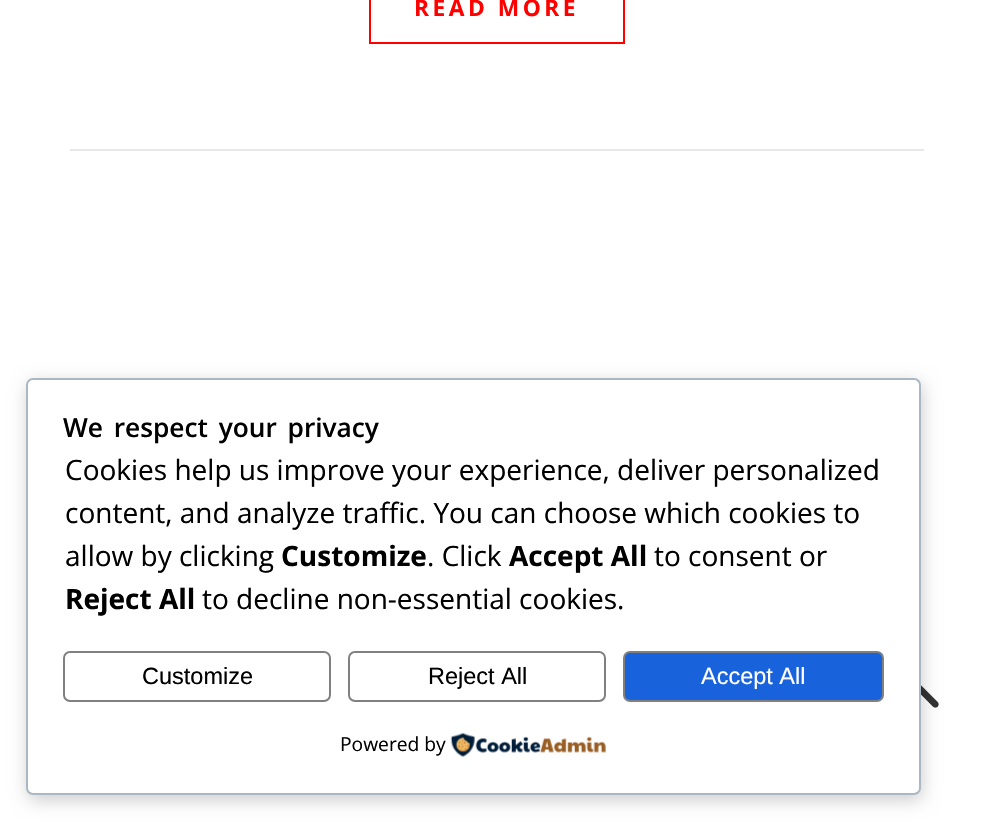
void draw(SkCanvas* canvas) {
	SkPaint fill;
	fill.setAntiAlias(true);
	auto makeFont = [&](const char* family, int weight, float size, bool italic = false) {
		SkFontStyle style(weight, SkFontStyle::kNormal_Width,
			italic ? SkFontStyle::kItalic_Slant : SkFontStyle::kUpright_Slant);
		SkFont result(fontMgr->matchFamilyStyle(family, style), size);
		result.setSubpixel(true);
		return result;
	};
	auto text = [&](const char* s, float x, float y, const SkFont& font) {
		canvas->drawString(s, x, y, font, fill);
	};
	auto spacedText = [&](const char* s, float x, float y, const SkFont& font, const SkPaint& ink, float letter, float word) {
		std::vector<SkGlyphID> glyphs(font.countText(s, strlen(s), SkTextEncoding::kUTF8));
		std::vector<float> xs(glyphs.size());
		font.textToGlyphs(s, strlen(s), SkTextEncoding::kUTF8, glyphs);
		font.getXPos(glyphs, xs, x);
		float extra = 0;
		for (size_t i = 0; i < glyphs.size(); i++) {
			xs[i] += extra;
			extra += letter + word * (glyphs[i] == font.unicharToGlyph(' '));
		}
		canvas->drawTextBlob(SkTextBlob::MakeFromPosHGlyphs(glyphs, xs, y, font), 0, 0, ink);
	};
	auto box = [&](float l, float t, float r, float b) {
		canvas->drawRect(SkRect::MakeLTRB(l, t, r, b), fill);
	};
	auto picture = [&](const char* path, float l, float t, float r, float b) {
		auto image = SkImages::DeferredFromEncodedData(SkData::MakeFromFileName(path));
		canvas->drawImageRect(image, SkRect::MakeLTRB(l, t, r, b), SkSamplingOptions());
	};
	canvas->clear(0xFFFFFFFF);
	fill.setColor(0xFFE8E8E8);
	box(70, 149, 924, 151);
	fill.setStyle(SkPaint::kStroke_Style);
	fill.setStrokeWidth(2);
	fill.setColor(0xFFFF0000);
	canvas->drawRect(SkRect::MakeLTRB(370, -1, 624, 43), fill);
	picture("image0.png", 921, 685, 939, 708);
	fill.setStyle(SkPaint::kFill_Style);
	fill.setColor(0x33000000);
	fill.setMaskFilter(SkMaskFilter::MakeBlur(kNormal_SkBlurStyle, 9));
	canvas->drawRoundRect(SkRect::MakeLTRB(28, 383, 922, 800), 7, 7, fill);
	fill.setMaskFilter(nullptr);
	fill.setColor(0xFFFFFFFF);
	canvas->drawRoundRect(SkRect::MakeLTRB(27, 379, 920, 794), 6, 6, fill);
	fill.setStyle(SkPaint::kStroke_Style);
	fill.setColor(0xFFABB8C3);
	canvas->drawRoundRect(SkRect::MakeLTRB(27, 379, 920, 794), 6, 6, fill);
	fill.setColor(0xFF808080);
	canvas->drawRoundRect(SkRect::MakeLTRB(64, 652, 330, 701), 6, 6, fill);
	canvas->drawRoundRect(SkRect::MakeLTRB(349, 652, 605, 701), 6, 6, fill);
	fill.setStyle(SkPaint::kFill_Style);
	fill.setColor(0xFF1863DC);
	canvas->drawRoundRect(SkRect::MakeLTRB(624, 652, 883, 701), 6, 6, fill);
	fill.setStyle(SkPaint::kStroke_Style);
	fill.setColor(0xFF808080);
	canvas->drawRoundRect(SkRect::MakeLTRB(624, 652, 883, 701), 6, 6, fill);
	picture("image1.png", 450, 733, 606, 757);
	auto font1 = makeFont("Open Sans", 700, 22.75f);
	fill.setStyle(SkPaint::kFill_Style);
	fill.setColor(0xFFFF0000);
	spacedText("READ MORE", 414, 16, font1, fill, 3.5f, 0);
	auto font2 = makeFont("Open Sans", 600, 26.25f);
	fill.setColor(0xFF000000);
	spacedText("We respect your privacy", 63, 437, font2, fill, 0, 4);
	auto font3 = makeFont("Open Sans", 400, 28);
	text("Cookies help us improve your experience, deliver personalized", 65, 480, font3);
	text("content, and analyze traffic. You can choose which cookies to", 65, 523, font3);
	text("allow by clicking", 65, 566, font3);
	auto font4 = makeFont("Open Sans", 700, 28);
	text("Customize", 281, 566, font4);
	text(". Click", 427, 566, font3);
	text("Accept All", 509, 566, font4);
	text("to consent or", 654, 566, font3);
	text("Reject All", 65, 609, font4);
	text("to decline non-essential cookies.", 202, 609, font3);
	auto font5 = makeFont("Liberation Sans", 400, 23.5f);
	text("Customize", 142, 684, font5);
	text("Reject All", 428, 684, font5);
	fill.setColor(0xFFFFFFFF);
	text("Accept All", 701, 684, font5);
	auto font6 = makeFont("Open Sans", 400, 19.25f);
	fill.setColor(0xFF000000);
	text("Powered by", 340, 751, font6);
}
